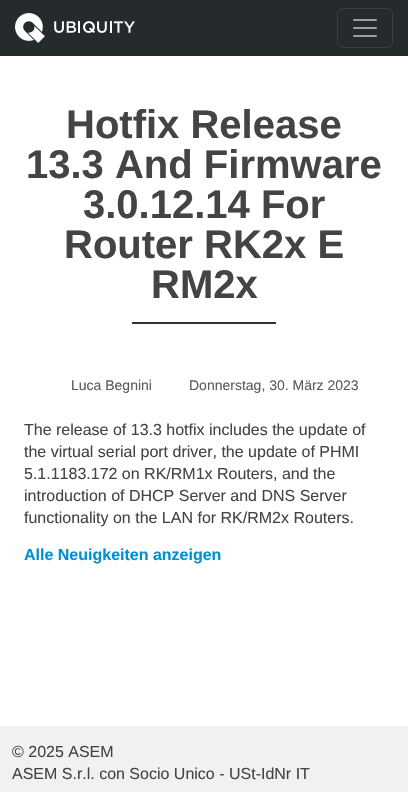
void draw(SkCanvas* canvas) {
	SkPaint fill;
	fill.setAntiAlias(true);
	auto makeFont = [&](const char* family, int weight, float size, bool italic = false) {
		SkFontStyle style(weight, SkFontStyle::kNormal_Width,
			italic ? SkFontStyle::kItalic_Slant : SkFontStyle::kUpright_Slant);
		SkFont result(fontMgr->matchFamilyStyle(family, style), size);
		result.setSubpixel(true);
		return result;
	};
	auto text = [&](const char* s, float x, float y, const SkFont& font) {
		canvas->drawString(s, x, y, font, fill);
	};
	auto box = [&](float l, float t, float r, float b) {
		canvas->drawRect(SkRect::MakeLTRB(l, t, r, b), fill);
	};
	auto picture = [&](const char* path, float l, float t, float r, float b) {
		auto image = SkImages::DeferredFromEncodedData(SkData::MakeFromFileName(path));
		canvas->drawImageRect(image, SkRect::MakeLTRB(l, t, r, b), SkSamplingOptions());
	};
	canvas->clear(0xFFFFFFFF);
	fill.setColor(0xFF252A2D);
	box(0, 0, 408, 56);
	picture("image0.png", 15, 13, 135, 43);
	fill.setStyle(SkPaint::kStroke_Style);
	fill.setStrokeWidth(1);
	fill.setColor(0xFF3B3F42);
	canvas->drawRoundRect(SkRect::MakeLTRB(337.5f, 8.5f, 392.5f, 47.5f), 5.5f, 5.5f, fill);
	picture("image1.png", 353, 19, 377, 37);
	fill.setStyle(SkPaint::kFill_Style);
	fill.setColor(0xFF333333);
	box(132, 322, 276, 324);
	fill.setColor(0xFFF1F1F1);
	box(0, 726, 408, 792);
	auto font1 = makeFont("Liberation Sans", 700, 40);
	fill.setColor(0xFF444444);
	text("Hotfix Release", 66, 138, font1);
	text("13.3 And Firmware", 26, 178, font1);
	text("3.0.12.14 For", 83, 218, font1);
	text("Router RK2x E", 64, 258, font1);
	text("RM2x", 151, 298, font1);
	auto font2 = makeFont("Liberation Sans", 400, 14);
	fill.setColor(0xFF595C5F);
	text("Luca Begnini", 71, 390, font2);
	text("Donnerstag, 30. März 2023", 189, 390, font2);
	auto font3 = makeFont("Liberation Sans", 400, 16);
	fill.setColor(0xFF444444);
	text("The release of 13.3 hotfix includes the update of", 24, 435, font3);
	text("the virtual serial port driver, the update of PHMI", 24, 457, font3);
	text("5.1.1183.172 on RK/RM1x Routers, and the", 24, 479, font3);
	text("introduction of DHCP Server and DNS Server", 24, 501, font3);
	text("functionality on the LAN for RK/RM2x Routers.", 24, 523, font3);
	auto font4 = makeFont("Liberation Sans", 700, 16);
	fill.setColor(0xFF0090D2);
	text("Alle Neuigkeiten anzeigen", 24, 560, font4);
	fill.setColor(0xFF444444);
	text("© 2025 ASEM", 12, 757, font3);
	text("ASEM S.r.l. con Socio Unico - USt-IdNr IT", 12, 779, font3);
}
